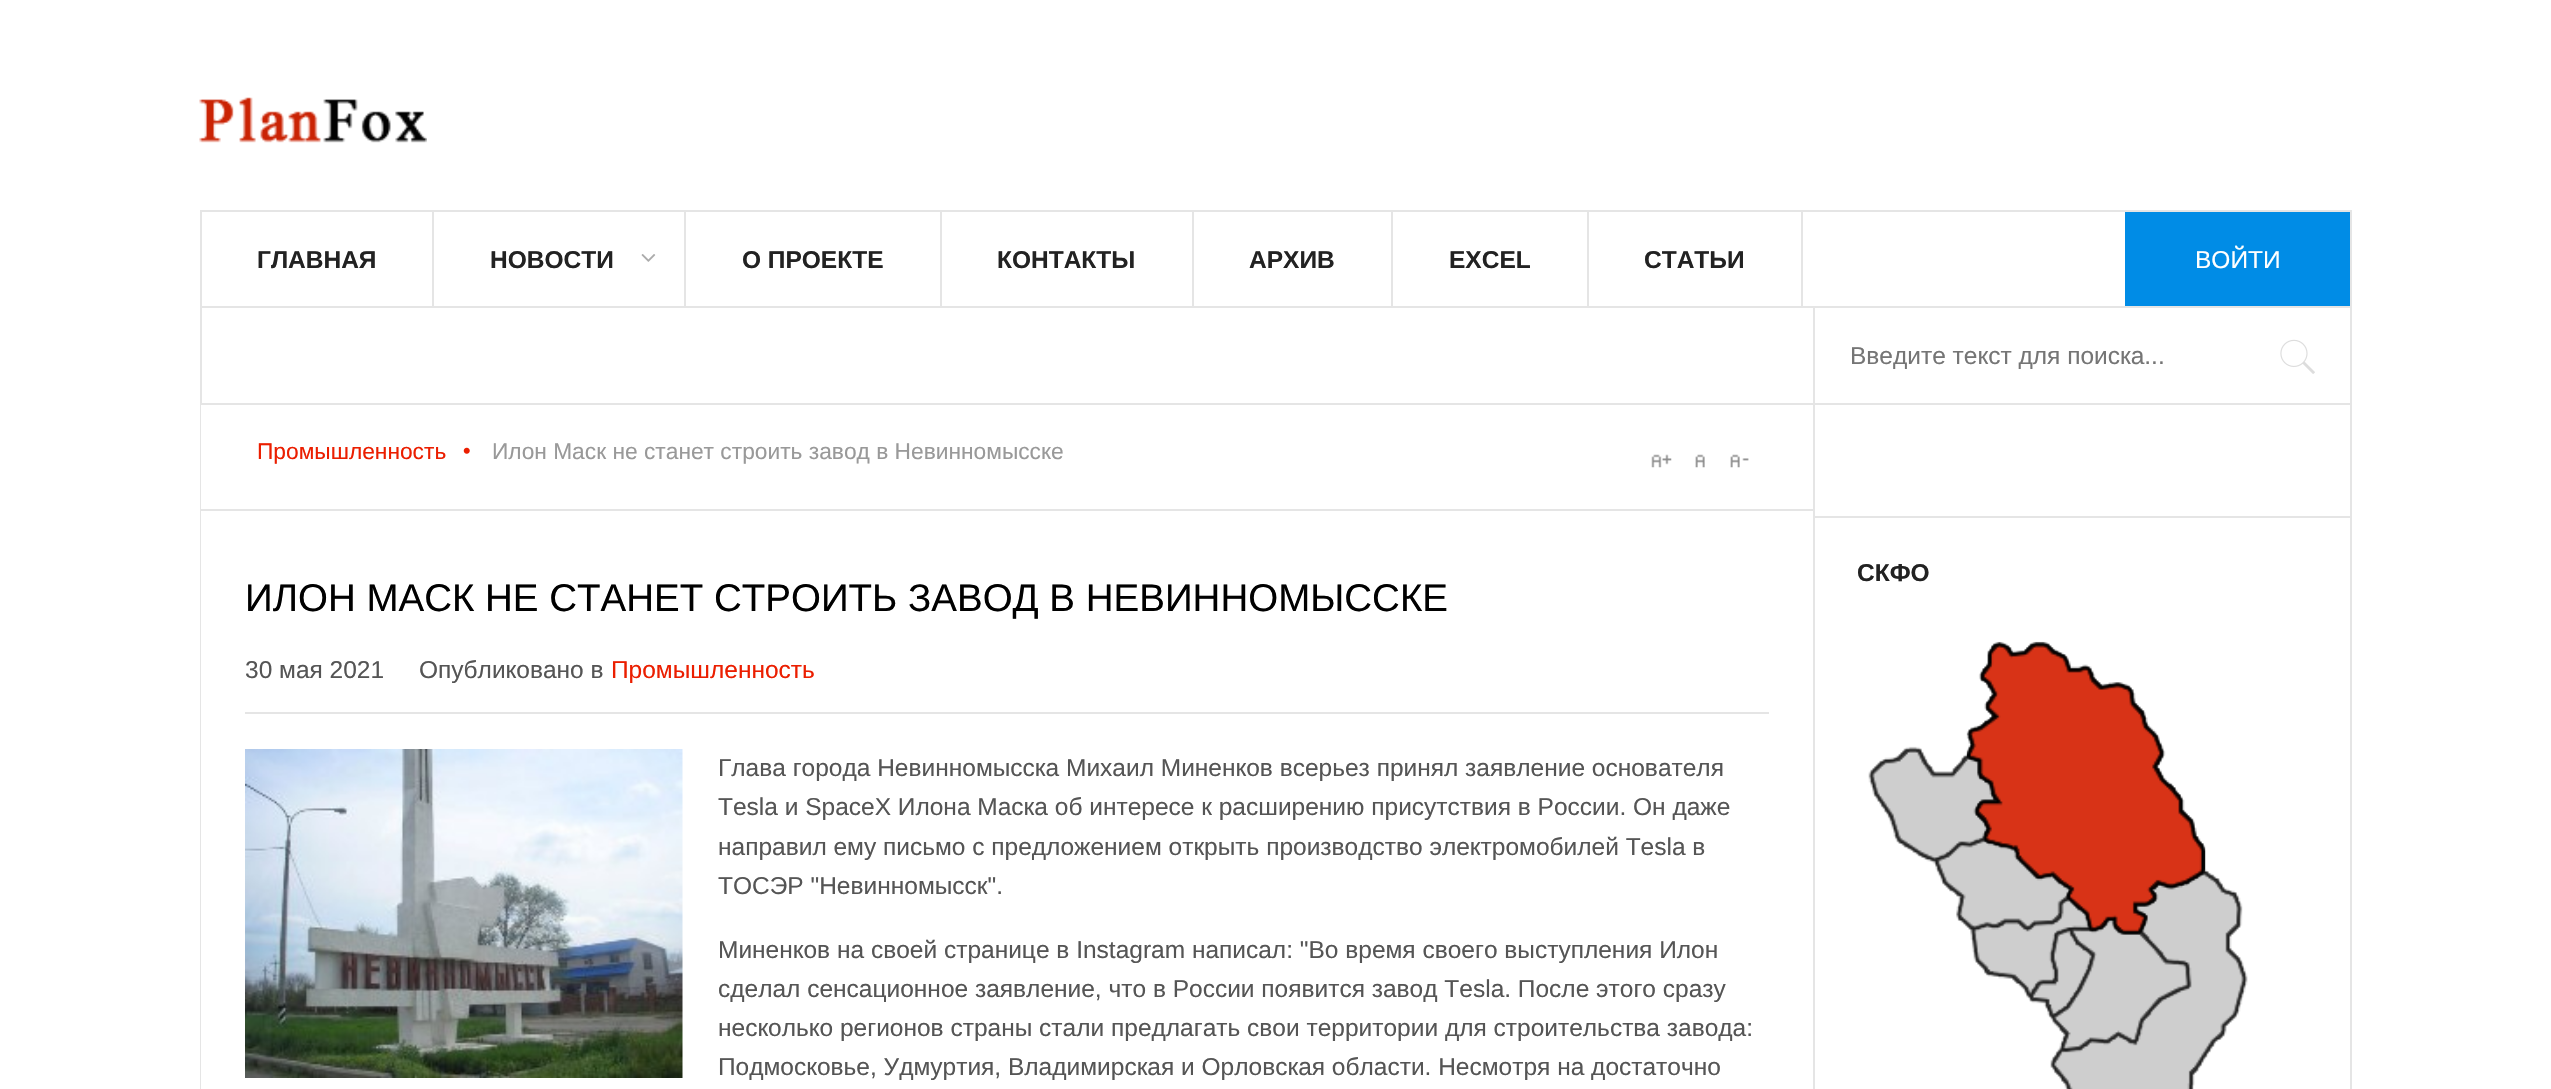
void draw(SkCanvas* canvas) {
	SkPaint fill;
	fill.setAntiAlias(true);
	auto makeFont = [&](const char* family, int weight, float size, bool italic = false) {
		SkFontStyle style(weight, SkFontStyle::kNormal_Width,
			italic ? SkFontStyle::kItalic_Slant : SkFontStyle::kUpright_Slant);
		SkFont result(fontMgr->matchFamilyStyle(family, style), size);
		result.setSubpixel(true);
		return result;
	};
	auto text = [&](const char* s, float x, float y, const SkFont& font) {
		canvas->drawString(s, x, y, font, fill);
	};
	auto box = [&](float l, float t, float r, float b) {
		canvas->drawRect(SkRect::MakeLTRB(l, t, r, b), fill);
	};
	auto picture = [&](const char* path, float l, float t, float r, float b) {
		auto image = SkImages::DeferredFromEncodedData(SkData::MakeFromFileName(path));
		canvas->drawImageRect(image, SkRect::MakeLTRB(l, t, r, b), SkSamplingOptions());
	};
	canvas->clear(0xFFFFFFFF);
	fill.setColor(0xFFE5E5E5);
	box(2350, 404, 2352, 1089);
	box(200, 404, 201, 1089);
	box(1813, 404, 1815, 1089);
	box(200, 403, 2352, 405);
	picture("image0.png", 199, 97, 427, 143);
	box(200, 210, 2352, 212);
	box(2350, 210, 2352, 306);
	box(200, 210, 202, 306);
	box(432, 212, 434, 306);
	box(684, 212, 686, 306);
	picture("image1.png", 641, 254, 656, 262);
	box(940, 212, 942, 306);
	box(1192, 212, 1194, 306);
	box(1391, 212, 1393, 306);
	box(1587, 212, 1589, 306);
	box(1801, 212, 1803, 306);
	fill.setColor(0xFF008CE6);
	box(2125, 212, 2350, 306);
	fill.setColor(0xFFE5E5E5);
	box(200, 306, 2352, 308);
	box(2350, 306, 2352, 403);
	box(200, 306, 202, 403);
	box(1813, 308, 1815, 403);
	picture("image2.png", 2280, 339, 2315, 374);
	box(201, 509, 1813, 511);
	picture("image3.png", 463, 447, 470, 454);
	picture("image4.png", 1651, 454, 1672, 468);
	picture("image5.png", 1695, 454, 1705, 468);
	picture("image6.png", 1730, 454, 1749, 468);
	box(245, 712, 1769, 714);
	picture("image7.png", 245, 749, 683, 1078);
	box(1815, 516, 2350, 518);
	picture("image8.png", 1868, 641, 2248, 1089);
	picture("image9.png", 1967, 642, 2205, 935);
	auto font1 = makeFont("Liberation Sans", 700, 24.5f);
	fill.setColor(0xFF222222);
	text("ГЛАВНАЯ", 257, 268, font1);
	text("НОВОСТИ", 490, 268, font1);
	text("О ПРОЕКТЕ", 742, 268, font1);
	text("КОНТАКТЫ", 997, 268, font1);
	text("АРХИВ", 1249, 268, font1);
	text("EXCEL", 1449, 268, font1);
	text("СТАТЬИ", 1644, 268, font1);
	auto font2 = makeFont("Liberation Sans", 400, 24.5f);
	fill.setColor(0xFFFFFFFF);
	text("ВОЙТИ", 2195, 268, font2);
	fill.setColor(0xFF757575);
	text("Введите текст для поиска...", 1850, 364, font2);
	auto font3 = makeFont("Liberation Sans", 400, 22.75f);
	fill.setColor(0xFFEB1E00);
	text("Промышленность", 257, 459, font3);
	fill.setColor(0xFF999999);
	text("Илон Маск не станет строить завод в Невинномысске", 492, 459, font3);
	auto font4 = makeFont("Liberation Sans", 400, 38.5f);
	fill.setColor(0xFF000000);
	text("ИЛОН МАСК НЕ СТАНЕТ СТРОИТЬ ЗАВОД В НЕВИННОМЫССКЕ", 245, 611, font4);
	fill.setColor(0xFF555555);
	text("30 мая 2021", 245, 678, font2);
	text("Опубликовано в", 419, 678, font2);
	fill.setColor(0xFFEB1E00);
	text("Промышленность", 611, 678, font2);
	fill.setColor(0xFF555555);
	text("Глава города Невинномысска Михаил Миненков всерьез принял заявление основателя", 718, 776, font2);
	text("Tesla и SpaceX Илона Маска об интересе к расширению присутствия в России. Он даже", 718, 815, font2);
	text("направил ему письмо с предложением открыть производство электромобилей Tesla в", 718, 855, font2);
	text("ТОСЭР \"Невинномысск\".", 718, 894, font2);
	text("Миненков на своей странице в Instagram написал: \"Во время своего выступления Илон", 718, 958, font2);
	text("сделал сенсационное заявление, что в России появится завод Tesla. После этого сразу", 718, 997, font2);
	text("несколько регионов страны стали предлагать свои территории для строительства завода:", 718, 1036, font2);
	text("Подмосковье, Удмуртия, Владимирская и Орловская области. Несмотря на достаточно", 718, 1075, font2);
	fill.setColor(0xFF222222);
	text("СКФО", 1857, 581, font1);
}
